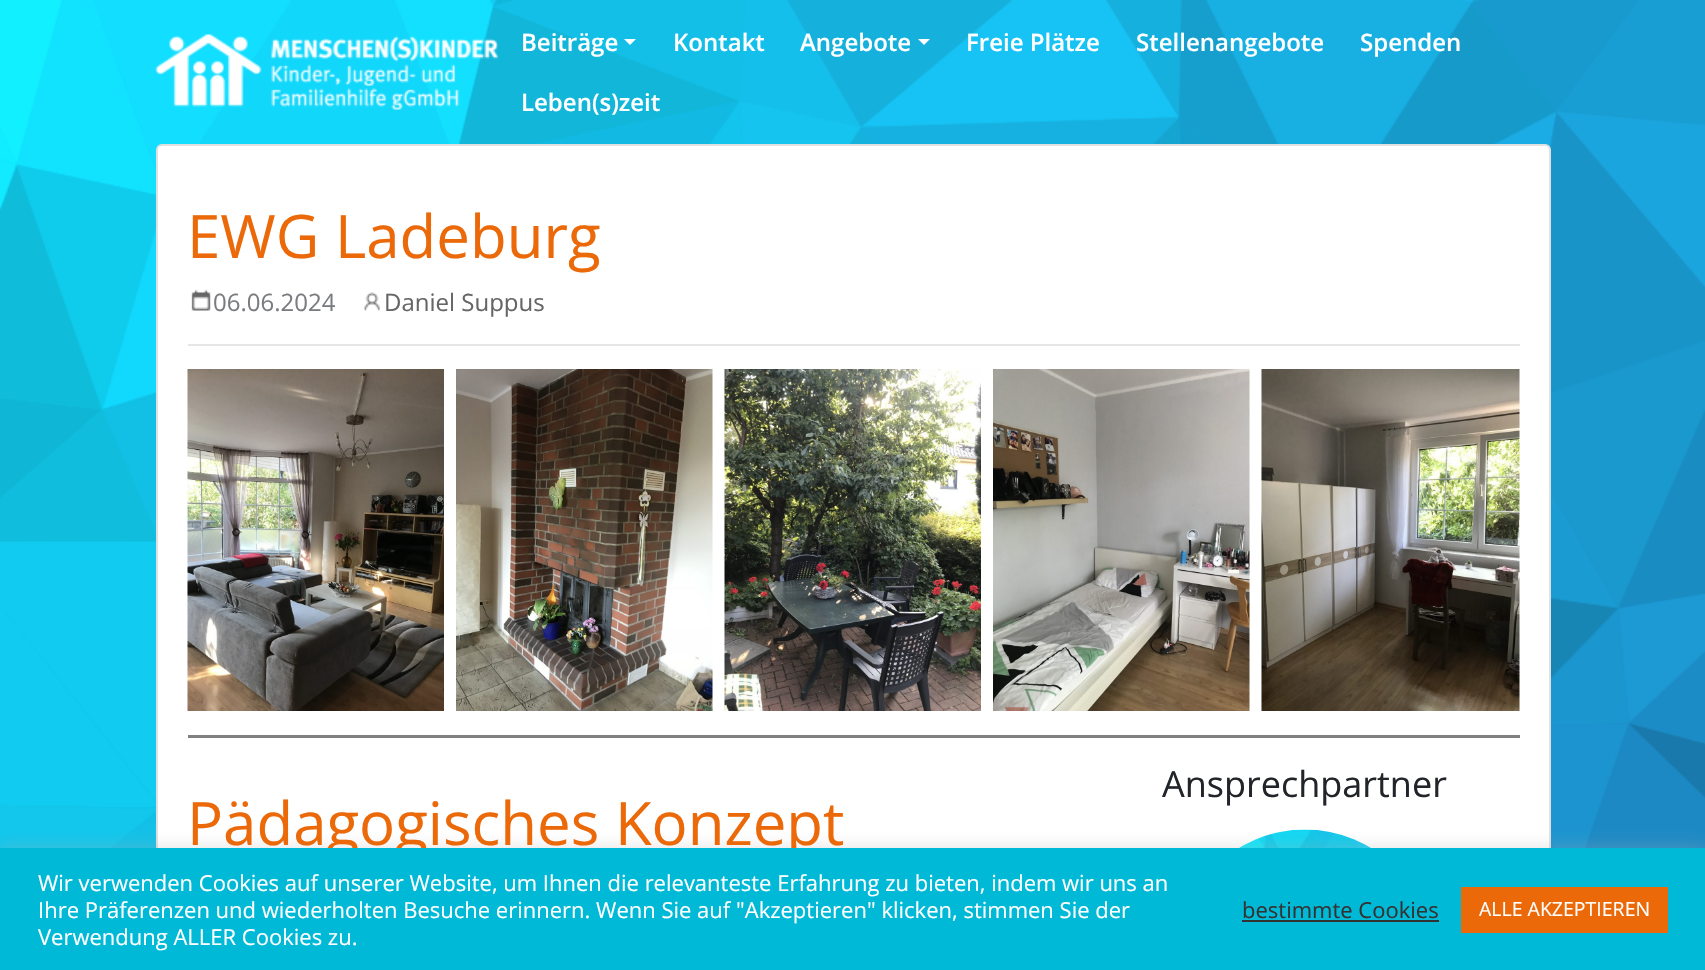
void draw(SkCanvas* canvas) {
	SkPaint fill;
	fill.setAntiAlias(true);
	auto makeFont = [&](const char* family, int weight, float size, bool italic = false) {
		SkFontStyle style(weight, SkFontStyle::kNormal_Width,
			italic ? SkFontStyle::kItalic_Slant : SkFontStyle::kUpright_Slant);
		SkFont result(fontMgr->matchFamilyStyle(family, style), size);
		result.setSubpixel(true);
		return result;
	};
	auto text = [&](const char* s, float x, float y, const SkFont& font) {
		canvas->drawString(s, x, y, font, fill);
	};
	auto box = [&](float l, float t, float r, float b) {
		canvas->drawRect(SkRect::MakeLTRB(l, t, r, b), fill);
	};
	auto roundBox = [&](float l, float t, float r, float b, float radius) {
		canvas->drawRoundRect(SkRect::MakeLTRB(l, t, r, b), radius, radius, fill);
	};
	auto picture = [&](const char* path, float l, float t, float r, float b) {
		auto image = SkImages::DeferredFromEncodedData(SkData::MakeFromFileName(path));
		canvas->drawImageRect(image, SkRect::MakeLTRB(l, t, r, b), SkSamplingOptions());
	};
	canvas->clear(0xFFFFFFFF);
	picture("image0.png", 0, 0, 1705, 848);
	picture("image1.png", 155, 34, 498, 110);
	fill.setColor(0xFFFFFFFF);
	canvas->drawPath(SkPathBuilder().moveTo(624, 39).lineTo(636, 39).lineTo(630, 45).close().detach(), fill);
	canvas->drawPath(SkPathBuilder().moveTo(918, 39).lineTo(930, 39).lineTo(924, 45).close().detach(), fill);
	roundBox(156, 144, 1551, 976, 6);
	fill.setStyle(SkPaint::kStroke_Style);
	fill.setStrokeWidth(2);
	fill.setColor(0x1F000000);
	canvas->drawRoundRect(SkRect::MakeLTRB(157, 145, 1550, 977), 5, 5, fill);
	picture("image2.png", 191, 289, 211, 311);
	picture("image3.png", 364, 292, 380, 311);
	fill.setStyle(SkPaint::kFill_Style);
	fill.setColor(0xFFE6E6E6);
	box(188, 344, 1520, 346);
	picture("image4.png", 187, 369, 444, 711);
	picture("image5.png", 456, 369, 713, 711);
	picture("image6.png", 724, 369, 981, 711);
	picture("image7.png", 993, 369, 1250, 711);
	picture("image8.png", 1261, 369, 1520, 711);
	fill.setColor(0xFF808080);
	box(188, 735, 1520, 738);
	picture("image9.png", 1239, 829, 1371, 848);
	fill.setColor(0x4DACABAB);
	fill.setMaskFilter(SkMaskFilter::MakeBlur(kNormal_SkBlurStyle, 7.5f));
	canvas->drawRect(SkRect::MakeLTRB(0, 846, 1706, 969), fill);
	fill.setMaskFilter(nullptr);
	auto font1 = makeFont("Open Sans", 600, 24);
	fill.setColor(0xFFFFFFFF);
	text("Beiträge", 521, 51, font1);
	text("Kontakt", 673, 51, font1);
	text("Angebote", 800, 51, font1);
	text("Freie Plätze", 966, 51, font1);
	text("Stellenangebote", 1136, 51, font1);
	text("Spenden", 1360, 51, font1);
	text("Leben(s)zeit", 521, 111, font1);
	auto font2 = makeFont("Open Sans", 400, 60);
	fill.setColor(0xFFEB6909);
	text("EWG Ladeburg", 187, 258, font2);
	auto font3 = makeFont("Open Sans", 400, 24);
	fill.setColor(0xFF7A7C7F);
	text("06.06.2024", 213, 311, font3);
	fill.setColor(0xFF666666);
	text("Daniel Suppus", 384, 311, font3);
	auto font4 = makeFont("Open Sans", 400, 36);
	fill.setColor(0xFF212529);
	text("Ansprechpartner", 1162, 797, font4);
	fill.setColor(0xFFEB6909);
	text("Pädagogisches Konzept", 187, 845, font2);
	fill.setColor(0xFF00B9D7);
	box(0, 848, 1705, 970);
	auto font5 = makeFont("Open Sans", 400, 22);
	fill.setColor(0xFFFFFFFF);
	text("Wir verwenden Cookies auf unserer Website, um Ihnen die relevanteste Erfahrung zu bieten, indem wir uns an", 38, 891, font5);
	text("Ihre Präferenzen und wiederholten Besuche erinnern. Wenn Sie auf \"Akzeptieren\" klicken, stimmen Sie der", 38, 918, font5);
	text("Verwendung ALLER Cookies zu.", 38, 945, font5);
	fill.setColor(0xFF333333);
	text("bestimmte Cookies", 1242, 918, font5);
	box(1242, 920, 1439, 922);
	fill.setColor(0xFFEB6909);
	box(1461, 887, 1668, 933);
	auto font6 = makeFont("Open Sans", 400, 19.5f);
	fill.setColor(0xFFFFFFFF);
	text("ALLE AKZEPTIEREN", 1479, 916, font6);
}
